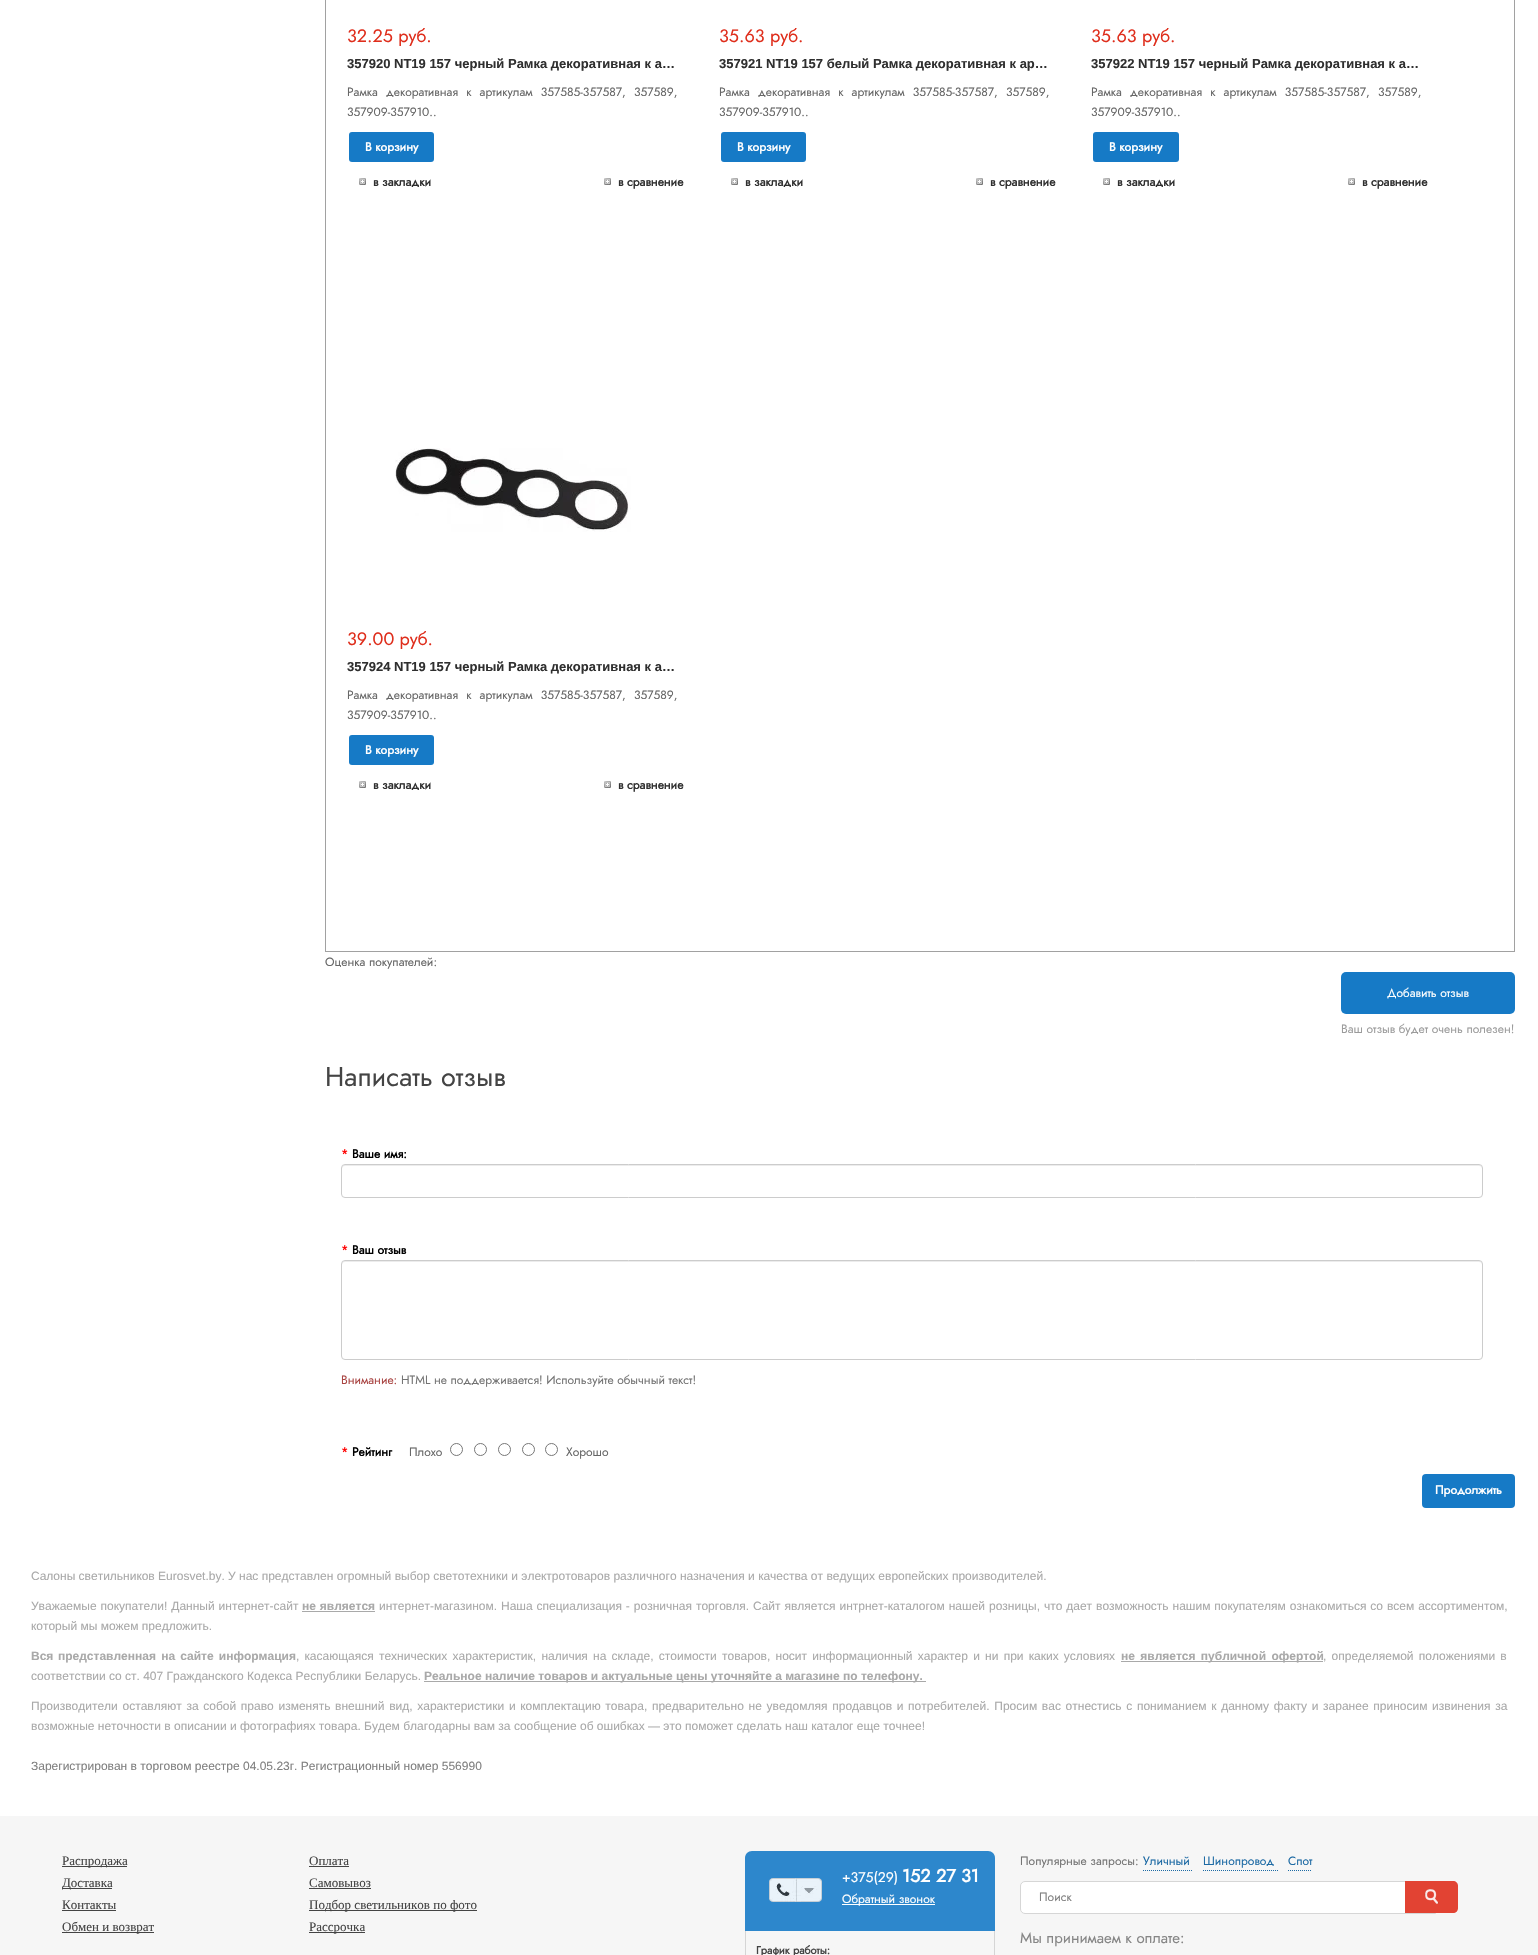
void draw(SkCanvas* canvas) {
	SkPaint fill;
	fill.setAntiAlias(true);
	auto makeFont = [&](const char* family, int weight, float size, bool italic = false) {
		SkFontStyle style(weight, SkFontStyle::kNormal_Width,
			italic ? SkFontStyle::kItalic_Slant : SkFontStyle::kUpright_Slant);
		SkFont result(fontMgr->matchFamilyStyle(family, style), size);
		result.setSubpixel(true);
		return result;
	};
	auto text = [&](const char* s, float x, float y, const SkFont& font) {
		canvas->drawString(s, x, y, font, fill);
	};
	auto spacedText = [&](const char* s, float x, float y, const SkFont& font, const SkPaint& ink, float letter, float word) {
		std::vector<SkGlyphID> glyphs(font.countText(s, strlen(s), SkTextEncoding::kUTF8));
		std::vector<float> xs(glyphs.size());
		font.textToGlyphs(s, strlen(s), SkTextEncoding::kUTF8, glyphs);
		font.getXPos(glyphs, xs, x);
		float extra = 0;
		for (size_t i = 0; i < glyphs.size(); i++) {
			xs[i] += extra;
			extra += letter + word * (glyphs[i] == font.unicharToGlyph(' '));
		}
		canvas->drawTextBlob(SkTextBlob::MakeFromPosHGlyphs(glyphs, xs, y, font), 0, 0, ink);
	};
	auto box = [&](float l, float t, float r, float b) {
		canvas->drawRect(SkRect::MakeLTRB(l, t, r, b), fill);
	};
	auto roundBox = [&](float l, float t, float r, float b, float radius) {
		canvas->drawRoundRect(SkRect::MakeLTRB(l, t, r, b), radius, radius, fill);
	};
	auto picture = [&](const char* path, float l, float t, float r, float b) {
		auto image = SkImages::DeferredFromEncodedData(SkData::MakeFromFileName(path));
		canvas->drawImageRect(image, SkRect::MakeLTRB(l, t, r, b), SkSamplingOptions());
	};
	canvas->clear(0xFFFFFFFF);
	fill.setStyle(SkPaint::kStroke_Style);
	fill.setStrokeWidth(1);
	fill.setColor(0xFFA1A1A1);
	canvas->drawRect(SkRect::MakeLTRB(325.5f, -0.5f, 1514.5f, 951.5f), fill);
	fill.setStyle(SkPaint::kFill_Style);
	fill.setColor(0xFF167AC6);
	roundBox(349, 132, 434, 162, 3);
	picture("image0.png", 359, 178, 366, 185);
	picture("image0.png", 604, 178, 611, 185);
	roundBox(721, 132, 806, 162, 3);
	picture("image0.png", 731, 178, 738, 185);
	picture("image0.png", 976, 178, 983, 185);
	roundBox(1093, 132, 1179, 162, 3);
	picture("image0.png", 1103, 178, 1110, 185);
	picture("image0.png", 1348, 178, 1355, 185);
	picture("image1.png", 395, 448, 631, 532);
	roundBox(349, 735, 434, 765, 3);
	picture("image0.png", 359, 781, 366, 788);
	picture("image0.png", 604, 781, 611, 788);
	roundBox(1341, 972, 1515, 1014, 5);
	fill.setColor(0xFFECECEC);
	canvas->drawPath(SkPathBuilder().moveTo(345, 1166).lineTo(1479, 1166).cubicTo(1481, 1166, 1482, 1167, 1482, 1169).lineTo(1482, 1168).cubicTo(1482, 1166, 1481, 1165, 1479, 1165).lineTo(345, 1165).cubicTo(343, 1165, 342, 1166, 342, 1168).lineTo(342, 1169).cubicTo(342, 1167, 343, 1166, 345, 1166).close().detach(), fill);
	fill.setStyle(SkPaint::kStroke_Style);
	fill.setColor(0xFFCCCCCC);
	canvas->drawRoundRect(SkRect::MakeLTRB(341.5f, 1164.5f, 1482.5f, 1197.5f), 3.5f, 3.5f, fill);
	fill.setStyle(SkPaint::kFill_Style);
	fill.setColor(0xFFECECEC);
	canvas->drawPath(SkPathBuilder().moveTo(345, 1262).lineTo(1479, 1262).cubicTo(1481, 1262, 1482, 1263, 1482, 1265).lineTo(1482, 1264).cubicTo(1482, 1262, 1481, 1261, 1479, 1261).lineTo(345, 1261).cubicTo(343, 1261, 342, 1262, 342, 1264).lineTo(342, 1265).cubicTo(342, 1263, 343, 1262, 345, 1262).close().detach(), fill);
	fill.setStyle(SkPaint::kStroke_Style);
	fill.setColor(0xFFCCCCCC);
	canvas->drawRoundRect(SkRect::MakeLTRB(341.5f, 1260.5f, 1482.5f, 1359.5f), 3.5f, 3.5f, fill);
	fill.setColor(0xFF767676);
	canvas->drawCircle(456.5f, 1449.5f, 6, fill);
	canvas->drawCircle(480.5f, 1449.5f, 6, fill);
	canvas->drawCircle(504.5f, 1449.5f, 6, fill);
	canvas->drawCircle(528.5f, 1449.5f, 6, fill);
	canvas->drawCircle(551.5f, 1449.5f, 6, fill);
	fill.setStyle(SkPaint::kFill_Style);
	fill.setColor(0xFF167AC6);
	roundBox(1422, 1474, 1515, 1508, 4);
	fill.setColor(0xFFA9A9A9);
	box(302, 1611, 375, 1612);
	box(1121, 1661, 1323, 1662);
	box(424, 1681, 926, 1682);
	fill.setColor(0xFFF6F6F6);
	box(0, 1816, 1538, 1955);
	fill.setColor(0xFF444444);
	box(62, 1866, 127, 1867);
	box(309, 1866, 349, 1867);
	box(62, 1888, 112, 1889);
	box(309, 1888, 371, 1889);
	box(62, 1910, 116, 1911);
	box(309, 1910, 477, 1911);
	box(62, 1932, 154, 1933);
	box(309, 1932, 365, 1933);
	fill.setColor(0xFF2D87CC);
	canvas->drawPath(SkPathBuilder().moveTo(752, 1851).lineTo(988, 1851).cubicTo(992, 1851, 995, 1854, 995, 1858).lineTo(995, 1931).lineTo(745, 1931).lineTo(745, 1858).cubicTo(745, 1854, 748, 1851, 752, 1851).close().detach(), fill);
	picture("image2.png", 769, 1878, 822, 1902);
	fill.setColor(0xFFFFFFFF);
	box(842, 1904, 935, 1905);
	fill.setColor(0xFFD5D5D5);
	box(994, 1931, 995, 1955);
	box(745, 1931, 746, 1955);
	fill.setStyle(SkPaint::kStroke_Style);
	fill.setColor(0xFF1D6AA4);
	fill.setPathEffect(SkDashPathEffect::Make({{1, 1}}, 0));
	canvas->drawPath(SkPathBuilder().moveTo(1143, 1870.5f).lineTo(1193, 1870.5f).detach(), fill);
	fill.setPathEffect(nullptr);
	fill.setPathEffect(SkDashPathEffect::Make({{1, 1}}, 0));
	canvas->drawPath(SkPathBuilder().moveTo(1203, 1870.5f).lineTo(1278, 1870.5f).detach(), fill);
	fill.setPathEffect(nullptr);
	fill.setPathEffect(SkDashPathEffect::Make({{1, 1}}, 0));
	canvas->drawPath(SkPathBuilder().moveTo(1288, 1870.5f).lineTo(1312, 1870.5f).detach(), fill);
	fill.setPathEffect(nullptr);
	fill.setStyle(SkPaint::kFill_Style);
	fill.setColor(0xFFFFFFFF);
	canvas->drawPath(SkPathBuilder().moveTo(1025, 1881.5f).lineTo(1435.5f, 1881.5f).lineTo(1435.5f, 1913.5f).lineTo(1025, 1913.5f).cubicTo(1022.5f, 1913.5f, 1020.5f, 1911.5f, 1020.5f, 1909).lineTo(1020.5f, 1886).cubicTo(1020.5f, 1883.5f, 1022.5f, 1881.5f, 1025, 1881.5f).close().detach(), fill);
	fill.setStyle(SkPaint::kStroke_Style);
	fill.setColor(0xFFD6D6D6);
	canvas->drawPath(SkPathBuilder().moveTo(1025, 1881.5f).lineTo(1435.5f, 1881.5f).lineTo(1435.5f, 1913.5f).lineTo(1025, 1913.5f).cubicTo(1022.5f, 1913.5f, 1020.5f, 1911.5f, 1020.5f, 1909).lineTo(1020.5f, 1886).cubicTo(1020.5f, 1883.5f, 1022.5f, 1881.5f, 1025, 1881.5f).close().detach(), fill);
	fill.setStyle(SkPaint::kFill_Style);
	fill.setColor(0xFFE24333);
	canvas->drawPath(SkPathBuilder().moveTo(1405, 1881).lineTo(1453, 1881).cubicTo(1456, 1881, 1458, 1883, 1458, 1886).lineTo(1458, 1908).cubicTo(1458, 1911, 1456, 1913, 1453, 1913).lineTo(1405, 1913).close().detach(), fill);
	picture("image3.png", 1424, 1889, 1439, 1904);
	auto font1 = makeFont("Jost", 400, 18);
	fill.setColor(0xFFDF2E1C);
	text("32.25 руб.", 347, 42, font1);
	auto font2 = makeFont("Liberation Sans", 700, 13);
	fill.setColor(0xFF2F2F2F);
	text("357920 NT19 157 черный Рамка декоративная к а…", 347, 68, font2);
	auto font3 = makeFont("Jost", 400, 12);
	fill.setColor(0xFF666666);
	spacedText("Рамка декоративная к артикулам 357585-357587, 357589,", 347, 96, font3, fill, 0, 4.5f);
	text("357909-357910..", 347, 116, font3);
	auto font4 = makeFont("Jost", 700, 12);
	fill.setColor(0xFFFFFFFF);
	text("В корзину", 365, 151, font4);
	fill.setColor(0xFF2F2F2F);
	text("в закладки", 373, 186, font4);
	text("в сравнение", 618, 186, font4);
	fill.setColor(0xFFDF2E1C);
	text("35.63 руб.", 719, 42, font1);
	fill.setColor(0xFF2F2F2F);
	text("357921 NT19 157 белый Рамка декоративная к ар…", 719, 68, font2);
	fill.setColor(0xFF666666);
	spacedText("Рамка декоративная к артикулам 357585-357587, 357589,", 719, 96, font3, fill, 0, 4.5f);
	text("357909-357910..", 719, 116, font3);
	fill.setColor(0xFFFFFFFF);
	text("В корзину", 737, 151, font4);
	fill.setColor(0xFF2F2F2F);
	text("в закладки", 745, 186, font4);
	text("в сравнение", 990, 186, font4);
	fill.setColor(0xFFDF2E1C);
	text("35.63 руб.", 1091, 42, font1);
	fill.setColor(0xFF2F2F2F);
	text("357922 NT19 157 черный Рамка декоративная к а…", 1091, 68, font2);
	fill.setColor(0xFF666666);
	spacedText("Рамка декоративная к артикулам 357585-357587, 357589,", 1091, 96, font3, fill, 0, 4.5f);
	text("357909-357910..", 1091, 116, font3);
	fill.setColor(0xFFFFFFFF);
	text("В корзину", 1109, 151, font4);
	fill.setColor(0xFF2F2F2F);
	text("в закладки", 1117, 186, font4);
	text("в сравнение", 1362, 186, font4);
	fill.setColor(0xFFDF2E1C);
	text("39.00 руб.", 347, 645, font1);
	fill.setColor(0xFF2F2F2F);
	text("357924 NT19 157 черный Рамка декоративная к а…", 347, 671, font2);
	fill.setColor(0xFF666666);
	spacedText("Рамка декоративная к артикулам 357585-357587, 357589,", 347, 699, font3, fill, 0, 4.5f);
	text("357909-357910..", 347, 719, font3);
	fill.setColor(0xFFFFFFFF);
	text("В корзину", 365, 754, font4);
	fill.setColor(0xFF2F2F2F);
	text("в закладки", 373, 789, font4);
	text("в сравнение", 618, 789, font4);
	fill.setColor(0xFF666666);
	text("Оценка покупателей:", 325, 966, font3);
	fill.setColor(0xFFFFFFFF);
	text("Добавить отзыв", 1387, 997, font3);
	fill.setColor(0xFF9B9B9B);
	text("Ваш отзыв будет очень полезен!", 1341, 1033, font3);
	auto font5 = makeFont("Jost", 400, 27);
	fill.setColor(0xFF444444);
	text("Написать отзыв", 325, 1086, font5);
	fill.setColor(0xFFFF0000);
	text("*", 341, 1158, font4);
	fill.setColor(0xFF000000);
	text("Ваше имя:", 352, 1158, font4);
	fill.setColor(0xFFFF0000);
	text("*", 341, 1254, font4);
	fill.setColor(0xFF000000);
	text("Ваш отзыв", 352, 1254, font4);
	fill.setColor(0xFFA94442);
	text("Внимание:", 341, 1384, font3);
	fill.setColor(0xFF737373);
	text("HTML не поддерживается! Используйте обычный текст!", 401, 1384, font3);
	fill.setColor(0xFFFF0000);
	text("*", 341, 1456, font4);
	fill.setColor(0xFF000000);
	text("Рейтинг", 352, 1456, font4);
	fill.setColor(0xFF666666);
	text("Плохо", 409, 1456, font3);
	text("Хорошо", 566, 1456, font3);
	fill.setColor(0xFFFFFFFF);
	text("Продолжить", 1435, 1494, font4);
	auto font6 = makeFont("Liberation Sans", 400, 12);
	fill.setColor(0xFFA9A9A9);
	text("Салоны светильников Eurosvet.by. У нас представлен огромный выбор светотехники и электротоваров различного назначения и качества от ведущих европейских производителей.", 31, 1580, font6);
	spacedText("Уважаемые покупатели! Данный интернет-сайт", 31, 1610, font6, fill, 0, 0.6f);
	auto font7 = makeFont("Liberation Sans", 700, 12);
	spacedText("не является", 302, 1610, font7, fill, 0, 0.6f);
	spacedText("интернет-магазином. Наша специализация - розничная торговля. Сайт является интрнет-каталогом нашей розницы, что дает возможность нашим покупателям ознакомиться со всем ассортиментом,", 379, 1610, font6, fill, 0, 0.6f);
	text("который мы можем предложить.", 31, 1630, font6);
	text("Вся", 31, 1660, font7);
	spacedText("представленная на сайте информация", 58, 1660, font7, fill, 0, 1.9f);
	spacedText(", касающаяся технических характеристик, наличия на складе, стоимости товаров, носит информационный характер и ни при каких условиях", 296, 1660, font6, fill, 0, 1.9f);
	spacedText("не является публичной офертой", 1121, 1660, font7, fill, 0, 2);
	spacedText(", определяемой положениями в", 1323, 1660, font6, fill, 0, 1.9f);
	text("соответствии со ст. 407 Гражданского Кодекса Республики Беларусь.", 31, 1680, font6);
	text("Реальное наличие товаров и актуальные цены уточняйте а магазине по телефону.", 424, 1680, font7);
	spacedText("Производители оставляют за собой право изменять внешний вид, характеристики и комплектацию товара, предварительно не уведомляя продавцов и потребителей. Просим вас отнестись с пониманием к данному факту и заранее приносим извинения за", 31, 1710, font6, fill, 0, 1.35f);
	text("возможные неточности в описании и фотографиях товара. Будем благодарны вам за сообщение об ошибках — это поможет сделать наш каталог еще точнее!", 31, 1730, font6);
	fill.setColor(0xFF808080);
	text("Зарегистрирован в торговом реестре 04.05.23г. Регистрационный номер 556990", 31, 1770, font6);
	auto font8 = makeFont("Liberation Serif", 400, 13);
	fill.setColor(0xFF444444);
	text("Распродажа", 62, 1865, font8);
	text("Оплата", 309, 1865, font8);
	text("Доставка", 62, 1887, font8);
	text("Самовывоз", 309, 1887, font8);
	text("Контакты", 62, 1909, font8);
	text("Подбор светильников по фото", 309, 1909, font8);
	text("Обмен и возврат", 62, 1931, font8);
	text("Рассрочка", 309, 1931, font8);
	auto font9 = makeFont("Jost", 400, 14);
	fill.setColor(0xFFFFFFFF);
	text("+375(29)", 842, 1882, font9);
	auto font10 = makeFont("Jost", 700, 18);
	text("152 27 31", 902, 1882, font10);
	text("Обратный звонок", 842, 1903, font3);
	auto font11 = makeFont("Jost", 700, 11);
	fill.setColor(0xFF444444);
	text("График работы:", 756, 1954, font11);
	fill.setColor(0xFF737373);
	text("Популярные запросы:", 1020, 1865, font3);
	fill.setColor(0xFF1D6AA4);
	text("Уличный", 1143, 1865, font3);
	text("Шинопровод", 1203, 1865, font3);
	text("Спот", 1288, 1865, font3);
	fill.setColor(0xFF808080);
	text("Поиск", 1039, 1901, font3);
	auto font12 = makeFont("Jost", 400, 15);
	fill.setColor(0xFF868686);
	text("Мы принимаем к оплате:", 1020, 1943, font12);
}
